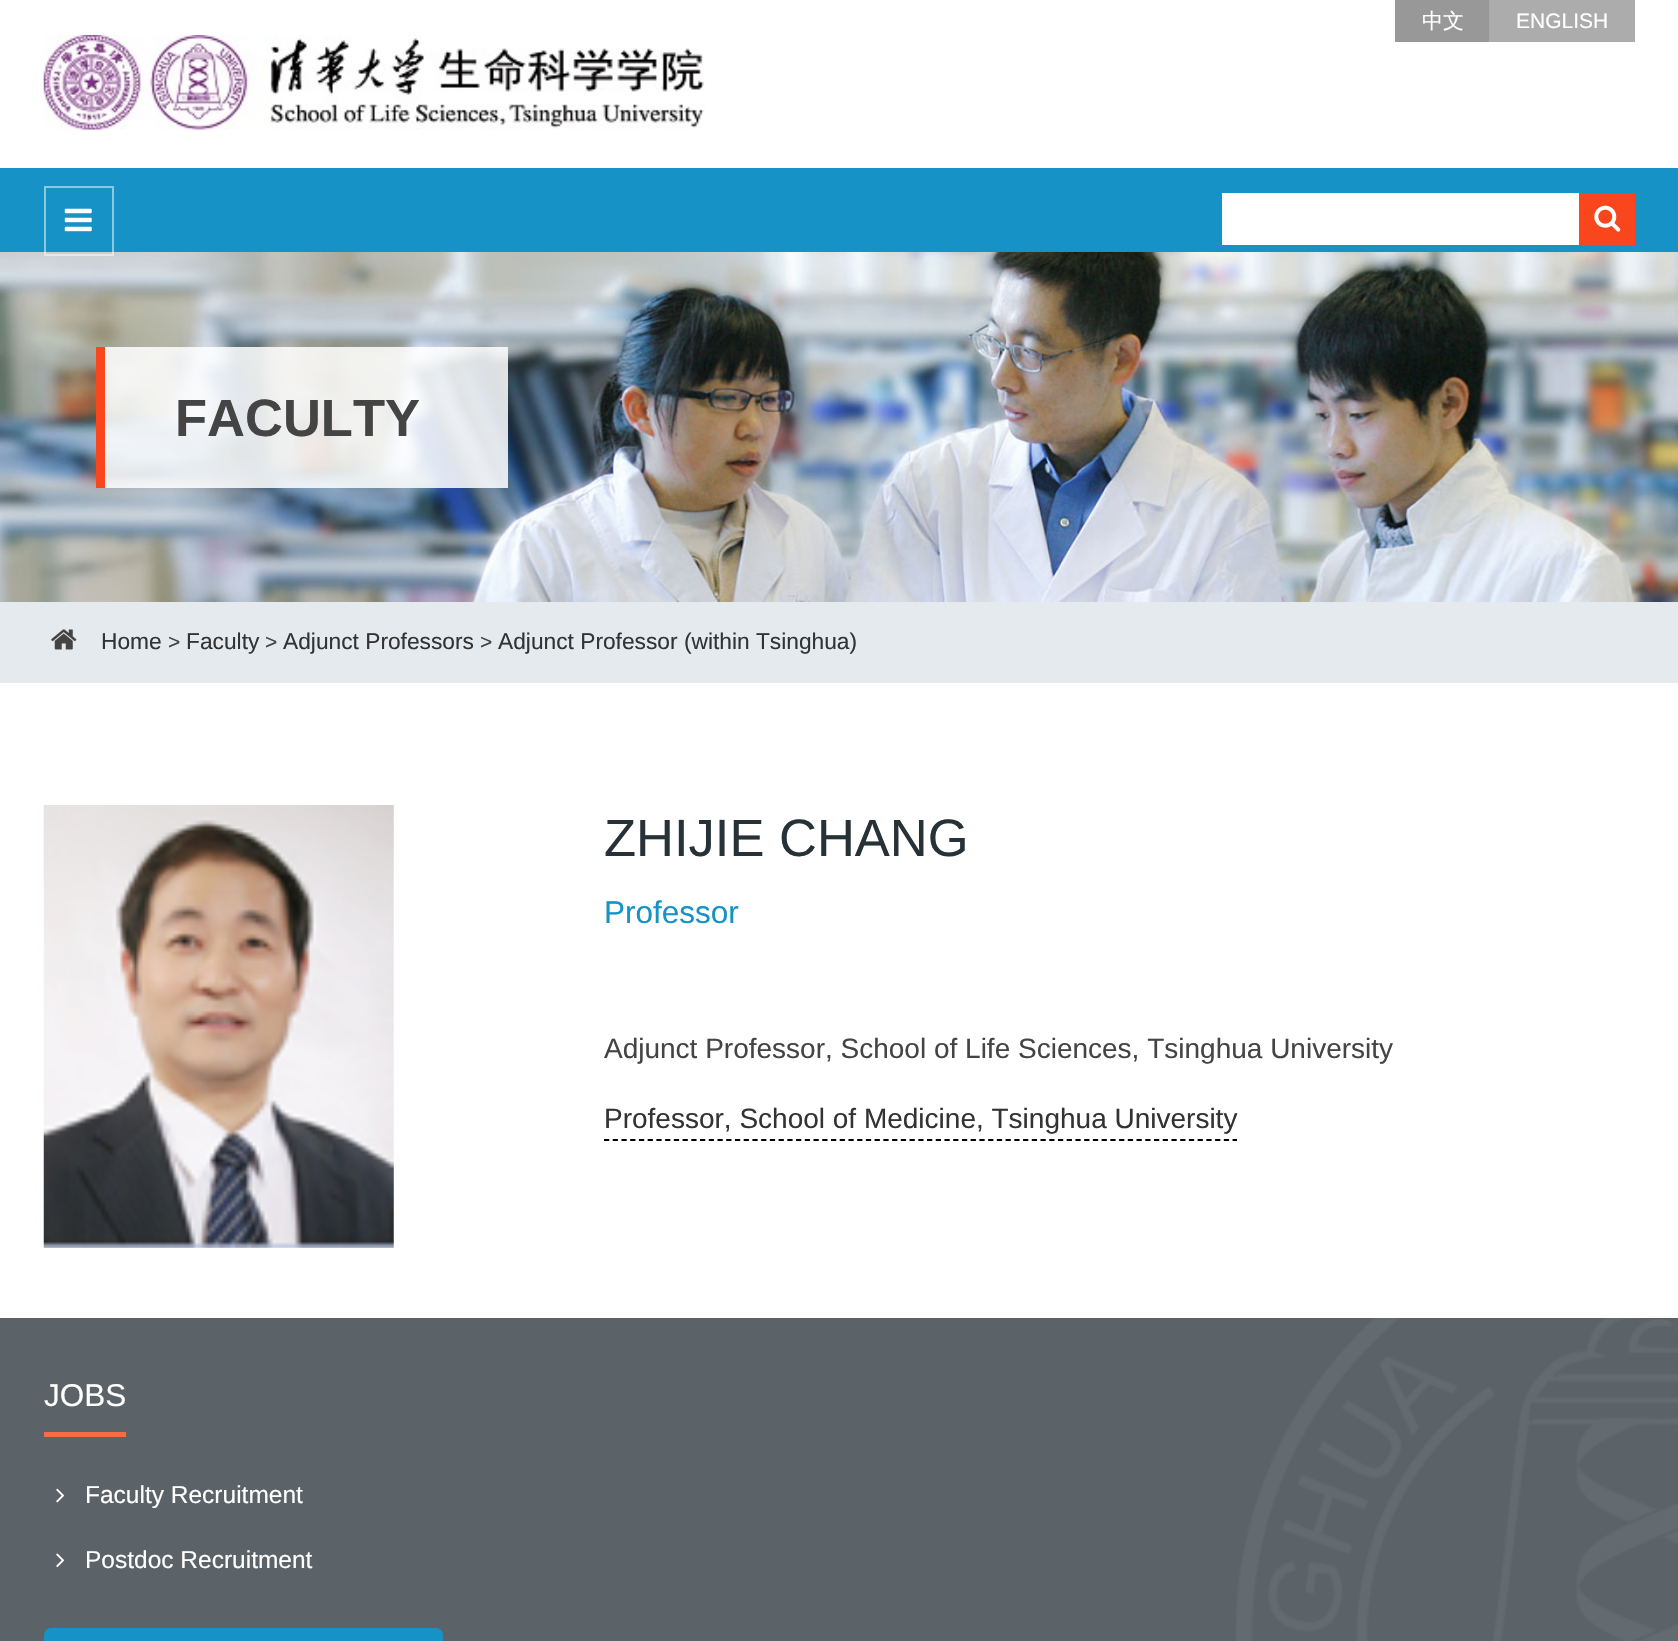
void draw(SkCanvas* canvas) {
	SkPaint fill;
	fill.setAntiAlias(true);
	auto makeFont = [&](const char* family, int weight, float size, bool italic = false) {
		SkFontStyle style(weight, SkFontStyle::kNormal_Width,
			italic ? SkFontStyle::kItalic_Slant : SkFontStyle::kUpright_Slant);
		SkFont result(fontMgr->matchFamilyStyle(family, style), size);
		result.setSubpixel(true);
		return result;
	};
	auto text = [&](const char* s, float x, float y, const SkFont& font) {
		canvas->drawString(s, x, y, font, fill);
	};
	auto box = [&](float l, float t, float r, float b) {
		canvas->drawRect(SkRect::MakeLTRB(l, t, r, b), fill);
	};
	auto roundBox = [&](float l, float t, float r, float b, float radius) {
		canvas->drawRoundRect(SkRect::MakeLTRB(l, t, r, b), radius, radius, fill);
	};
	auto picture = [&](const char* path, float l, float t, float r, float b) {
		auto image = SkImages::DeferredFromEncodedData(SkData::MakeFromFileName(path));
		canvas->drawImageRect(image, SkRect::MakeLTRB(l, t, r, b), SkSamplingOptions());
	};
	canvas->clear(0xFFFFFFFF);
	fill.setColor(0xFF989898);
	box(1395, 0, 1489, 42);
	fill.setColor(0xFFACACAC);
	box(1489, 0, 1635, 42);
	picture("image0.png", 43, 35, 705, 130);
	fill.setColor(0xFF1692C6);
	box(0, 168, 1678, 252);
	fill.setColor(0xFFFFFFFF);
	box(1222, 193, 1579, 245);
	fill.setColor(0xFFF9461D);
	box(1579, 193, 1635, 245);
	picture("image1.png", 1594, 205, 1621, 232);
	picture("image3.png", 0, 252, 1678, 602);
	fill.setStyle(SkPaint::kStroke_Style);
	fill.setStrokeWidth(2);
	fill.setColor(0x80FFFFFF);
	canvas->drawRect(SkRect::MakeLTRB(45, 187, 113, 255), fill);
	picture("image2.png", 64, 208, 92, 232);
	fill.setStyle(SkPaint::kFill_Style);
	fill.setColor(0xFFF9461D);
	box(96, 347, 105, 488);
	fill.setColor(0xD9FFFFFF);
	box(105, 347, 508, 488);
	fill.setColor(0xFFE4EAEE);
	box(0, 602, 1678, 683);
	picture("image4.png", 51, 629, 77, 650);
	picture("image5.png", 43, 805, 394, 1248);
	fill.setStyle(SkPaint::kStroke_Style);
	fill.setStrokeWidth(1.8f);
	fill.setColor(0xFF000000);
	fill.setPathEffect(SkDashPathEffect::Make({{5.25f, 3.48f}}, 0));
	canvas->drawPath(SkPathBuilder().moveTo(604, 1140).lineTo(1237, 1140).detach(), fill);
	fill.setPathEffect(nullptr);
	fill.setStyle(SkPaint::kFill_Style);
	fill.setColor(0xFF5B6368);
	box(0, 1318, 1678, 1641);
	fill.setColor(0xFFF96A49);
	box(44, 1432, 126, 1437);
	picture("image6.png", 56, 1488, 65, 1503);
	picture("image7.png", 56, 1553, 65, 1568);
	fill.setColor(0xFF1692C6);
	roundBox(44, 1628, 443, 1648, 7);
	picture("image8.png", 1236, 1318, 1678, 1641);
	auto font1 = makeFont("WenQuanYi Zen Hei", 500, 21);
	fill.setColor(0xFFFFFFFF);
	text("中文", 1422, 28, font1);
	auto font2 = makeFont("Liberation Sans", 400, 21);
	text("ENGLISH", 1516, 28, font2);
	auto font3 = makeFont("Liberation Sans", 700, 52.5f);
	fill.setColor(0xFF444444);
	text("FACULTY", 175, 436, font3);
	auto font4 = makeFont("Liberation Sans", 400, 22.75f);
	fill.setColor(0xFF333333);
	text("Home", 101, 649, font4);
	fill.setColor(0xFF444444);
	text(">", 168, 649, font2);
	fill.setColor(0xFF333333);
	text("Faculty", 186, 649, font4);
	fill.setColor(0xFF444444);
	text(">", 265, 649, font2);
	fill.setColor(0xFF333333);
	text("Adjunct Professors", 283, 649, font4);
	fill.setColor(0xFF444444);
	text(">", 480, 649, font2);
	fill.setColor(0xFF333333);
	text("Adjunct Professor (within Tsinghua)", 498, 649, font4);
	auto font5 = makeFont("Liberation Sans", 400, 52.5f);
	fill.setColor(0xFF273238);
	text("ZHIJIE CHANG", 604, 856, font5);
	auto font6 = makeFont("Liberation Sans", 400, 31.5f);
	fill.setColor(0xFF1692C6);
	text("Professor", 604, 923, font6);
	auto font7 = makeFont("Liberation Sans", 400, 28);
	fill.setColor(0xFF444444);
	text("Adjunct Professor, School of Life Sciences, Tsinghua University", 604, 1058, font7);
	fill.setColor(0xFF333333);
	text("Professor, School of Medicine, Tsinghua University", 604, 1128, font7);
	fill.setColor(0xFFFFFFFF);
	text("JOBS", 44, 1406, font6);
	auto font8 = makeFont("Liberation Sans", 400, 24.5f);
	text("Faculty Recruitment", 85, 1503, font8);
	text("Postdoc Recruitment", 85, 1568, font8);
}
